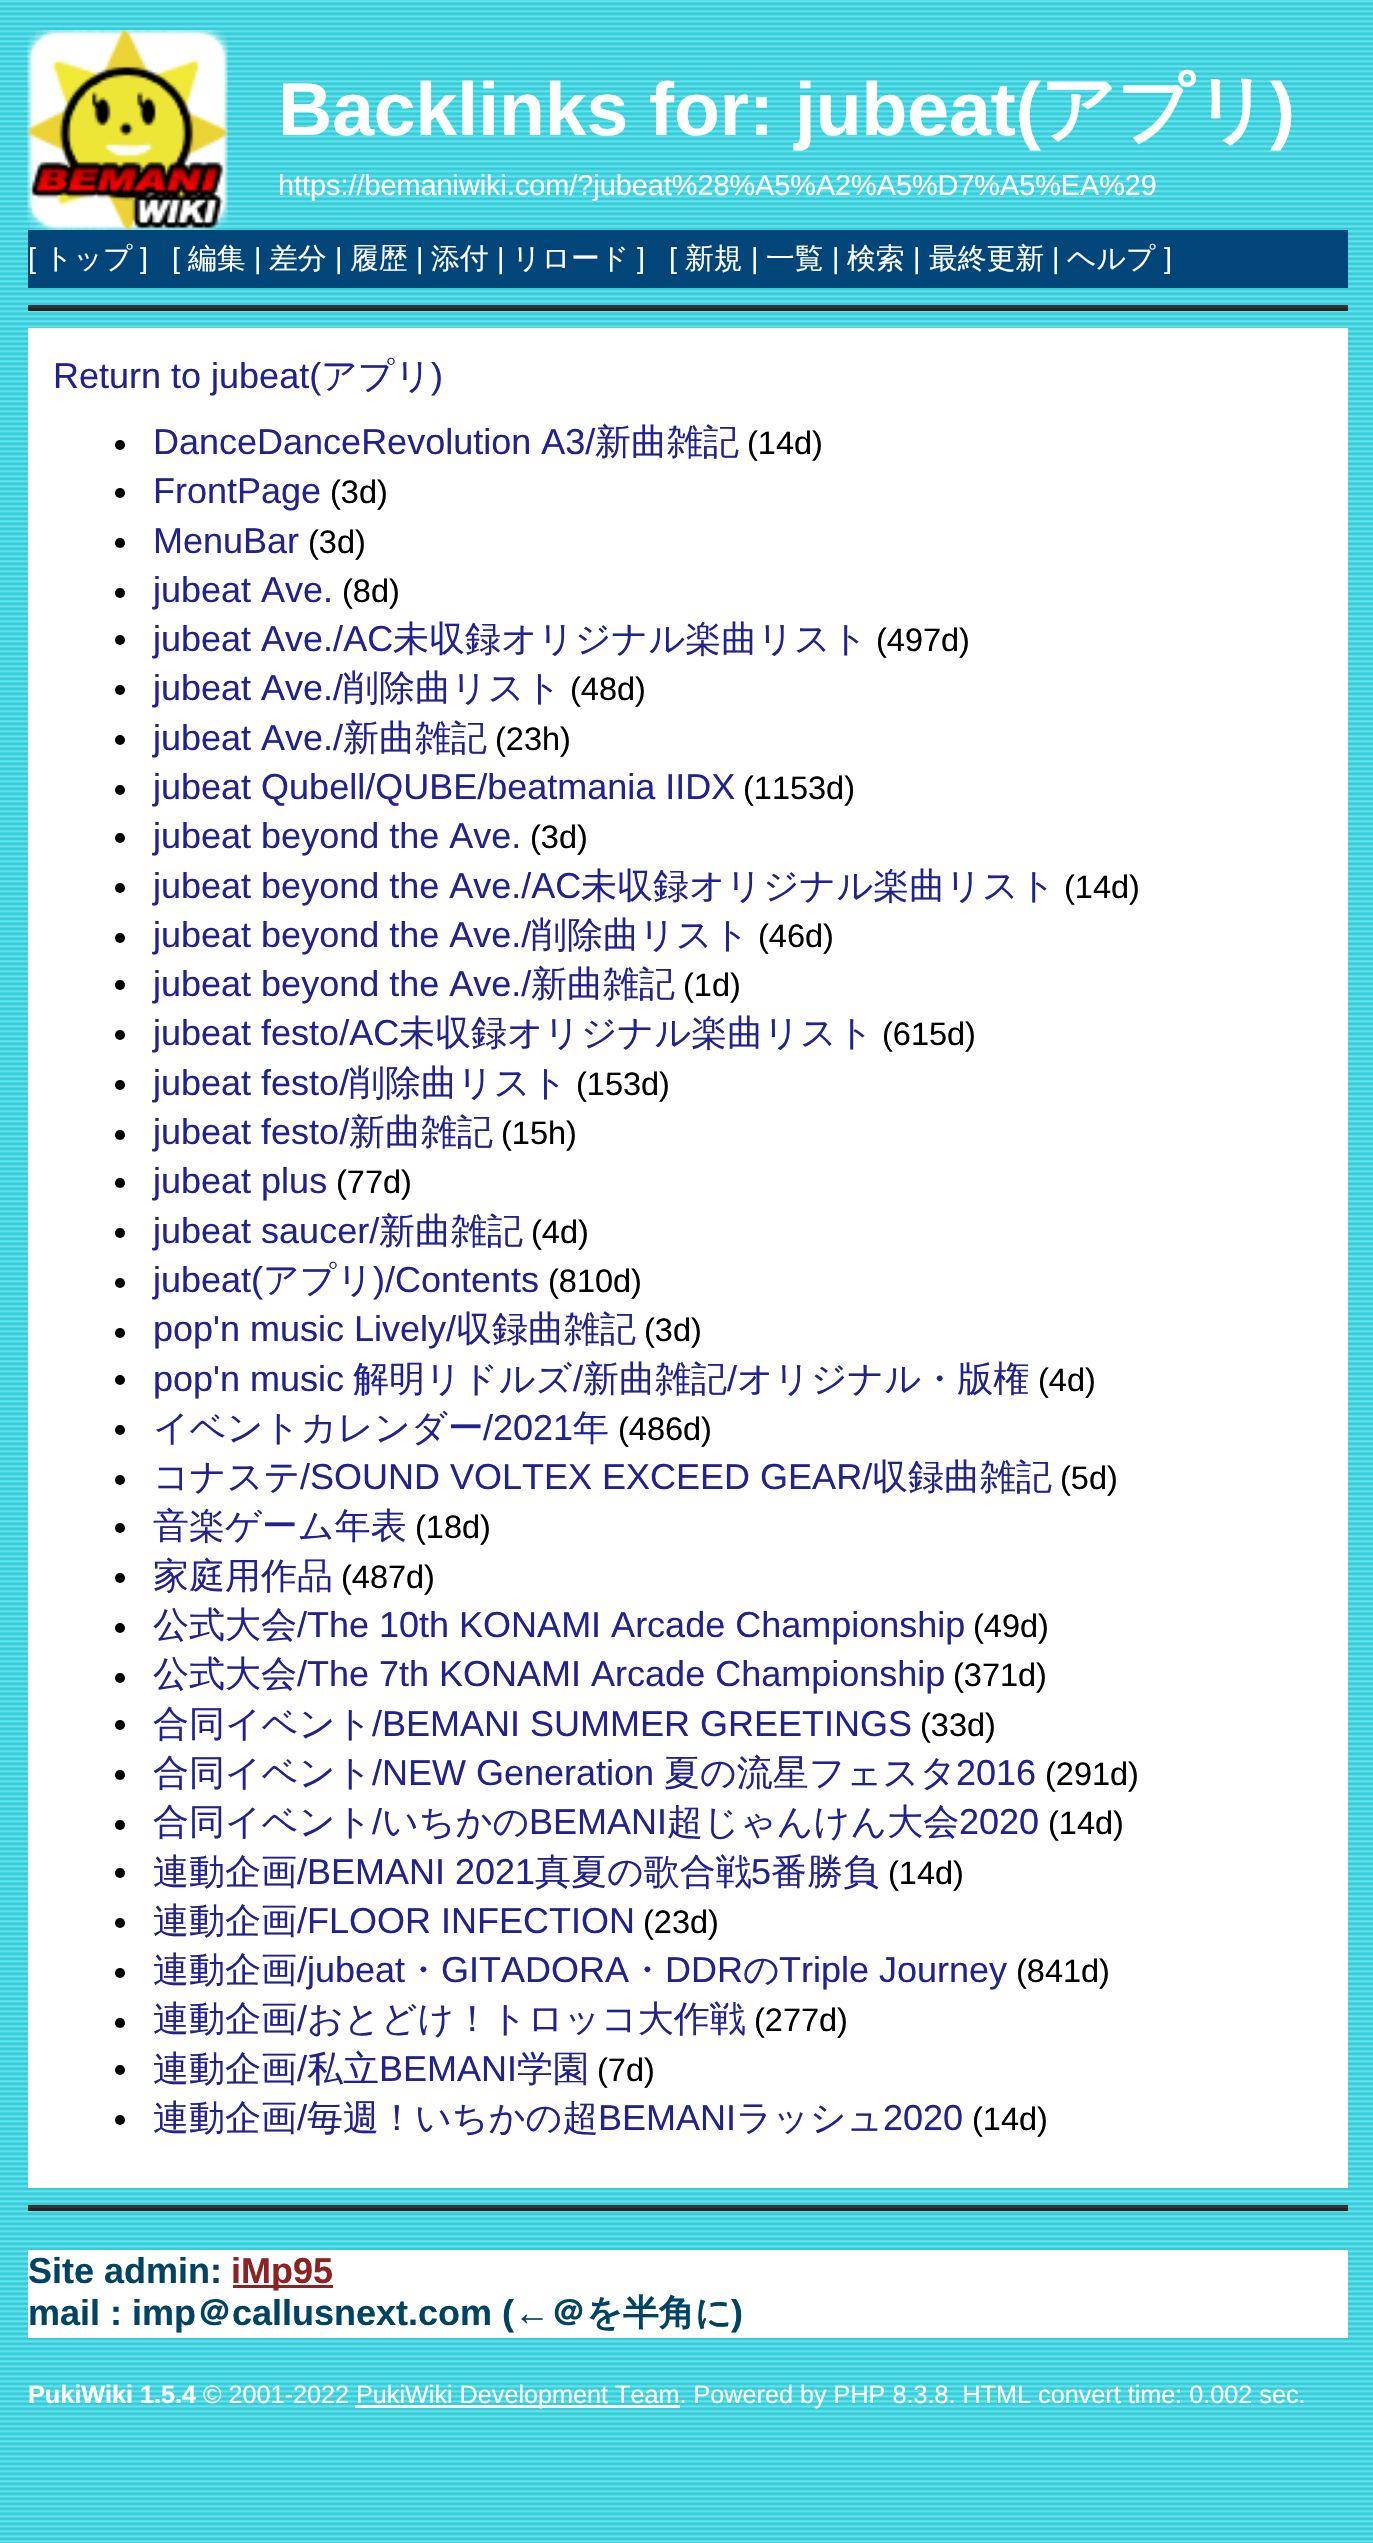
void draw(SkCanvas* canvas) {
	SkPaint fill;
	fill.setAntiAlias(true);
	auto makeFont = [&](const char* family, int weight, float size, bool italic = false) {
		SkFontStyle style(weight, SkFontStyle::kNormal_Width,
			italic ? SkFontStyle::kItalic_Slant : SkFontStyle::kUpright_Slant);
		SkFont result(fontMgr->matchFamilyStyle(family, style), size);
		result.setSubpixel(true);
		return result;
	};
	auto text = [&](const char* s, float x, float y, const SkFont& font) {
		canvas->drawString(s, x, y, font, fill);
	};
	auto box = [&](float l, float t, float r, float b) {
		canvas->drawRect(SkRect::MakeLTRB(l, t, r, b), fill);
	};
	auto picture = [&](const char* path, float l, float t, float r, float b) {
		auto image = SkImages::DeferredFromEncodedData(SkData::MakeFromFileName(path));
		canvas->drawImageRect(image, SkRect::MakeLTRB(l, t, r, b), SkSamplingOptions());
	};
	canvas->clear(0xFFFFFFFF);
	picture("image0.png", 0, 0, 1373, 2543);
	picture("image1.png", 27, 30, 228, 230);
	fill.setColor(0xFF014579);
	box(28, 230, 1348, 288);
	fill.setColor(0xFF333333);
	box(28, 305, 1348, 308);
	fill.setColor(0xFF222222);
	box(28, 308, 1348, 311);
	fill.setColor(0xFFFFFFFF);
	box(28, 328, 1348, 2188);
	fill.setColor(0xFF000000);
	canvas->drawCircle(120, 445, 5, fill);
	canvas->drawCircle(120, 493, 5, fill);
	canvas->drawCircle(120, 543, 5, fill);
	canvas->drawCircle(120, 593, 5, fill);
	canvas->drawCircle(120, 640, 5, fill);
	canvas->drawCircle(120, 690, 5, fill);
	canvas->drawCircle(120, 740, 5, fill);
	canvas->drawCircle(120, 790, 5, fill);
	canvas->drawCircle(120, 838, 5, fill);
	canvas->drawCircle(120, 888, 5, fill);
	canvas->drawCircle(120, 938, 5, fill);
	canvas->drawCircle(120, 985, 5, fill);
	canvas->drawCircle(120, 1035, 5, fill);
	canvas->drawCircle(120, 1085, 5, fill);
	canvas->drawCircle(120, 1135, 5, fill);
	canvas->drawCircle(120, 1183, 5, fill);
	canvas->drawCircle(120, 1233, 5, fill);
	canvas->drawCircle(120, 1283, 5, fill);
	canvas->drawCircle(120, 1333, 5, fill);
	canvas->drawCircle(120, 1380, 5, fill);
	canvas->drawCircle(120, 1430, 5, fill);
	canvas->drawCircle(120, 1480, 5, fill);
	canvas->drawCircle(120, 1528, 5, fill);
	canvas->drawCircle(120, 1578, 5, fill);
	canvas->drawCircle(120, 1628, 5, fill);
	canvas->drawCircle(120, 1678, 5, fill);
	canvas->drawCircle(120, 1725, 5, fill);
	canvas->drawCircle(120, 1775, 5, fill);
	canvas->drawCircle(120, 1825, 5, fill);
	canvas->drawCircle(120, 1873, 5, fill);
	canvas->drawCircle(120, 1923, 5, fill);
	canvas->drawCircle(120, 1973, 5, fill);
	canvas->drawCircle(120, 2023, 5, fill);
	canvas->drawCircle(120, 2070, 5, fill);
	canvas->drawCircle(120, 2120, 5, fill);
	fill.setColor(0xFF333333);
	box(28, 2205, 1348, 2208);
	fill.setColor(0xFF222222);
	box(28, 2208, 1348, 2211);
	fill.setColor(0xFFFFFFFF);
	box(28, 2250, 1348, 2338);
	fill.setColor(0xFF8E2222);
	box(233, 2285, 333, 2288);
	fill.setColor(0xFFFFFFFF);
	box(355, 2405, 680, 2408);
	auto font1 = makeFont("Liberation Sans", 700, 75);
	text("Backlinks for: jubeat(", 278, 135, font1);
	auto font2 = makeFont("WenQuanYi Zen Hei", 700, 75);
	text("アプリ", 1040, 135, font2);
	text(")", 1270, 135, font1);
	auto font3 = makeFont("Liberation Sans", 400, 28.8f);
	text("https://bemaniwiki.com/?jubeat%28%A5%A2%A5%D7%A5%EA%29", 278, 195, font3);
	text("[", 28, 268, font3);
	auto font4 = makeFont("WenQuanYi Zen Hei", 500, 28.8f);
	text("トップ", 44, 268, font4);
	text("]", 140, 268, font3);
	text("[", 172, 268, font3);
	text("編集", 188, 268, font4);
	text("|", 254, 268, font3);
	text("差分", 269, 268, font4);
	text("|", 335, 268, font3);
	text("履歴", 350, 268, font4);
	text("|", 416, 268, font3);
	text("添付", 431, 268, font4);
	text("|", 497, 268, font3);
	text("リロード", 512, 268, font4);
	text("]", 637, 268, font3);
	text("[", 669, 268, font3);
	text("新規", 685, 268, font4);
	text("|", 751, 268, font3);
	text("一覧", 766, 268, font4);
	text("|", 832, 268, font3);
	text("検索", 847, 268, font4);
	text("|", 913, 268, font3);
	text("最終更新", 929, 268, font4);
	text("|", 1052, 268, font3);
	text("ヘルプ", 1067, 268, font4);
	text("]", 1164, 268, font3);
	auto font5 = makeFont("Liberation Sans", 400, 36);
	fill.setColor(0xFF22228E);
	text("Return to jubeat(", 53, 388, font5);
	auto font6 = makeFont("WenQuanYi Zen Hei", 500, 36);
	text("アプリ", 321, 388, font6);
	text(")", 431, 388, font5);
	text("DanceDanceRevolution A3/", 153, 454, font5);
	text("新曲雑記", 595, 454, font6);
	auto font7 = makeFont("Liberation Sans", 400, 32.5f);
	fill.setColor(0xFF000000);
	text("(14d)", 747, 454, font7);
	fill.setColor(0xFF22228E);
	text("FrontPage", 153, 503, font5);
	fill.setColor(0xFF000000);
	text("(3d)", 330, 503, font7);
	fill.setColor(0xFF22228E);
	text("MenuBar", 153, 553, font5);
	fill.setColor(0xFF000000);
	text("(3d)", 308, 553, font7);
	fill.setColor(0xFF22228E);
	text("jubeat Ave.", 153, 602, font5);
	fill.setColor(0xFF000000);
	text("(8d)", 342, 602, font7);
	fill.setColor(0xFF22228E);
	text("jubeat Ave./AC", 153, 651, font5);
	text("未収録オリジナル楽曲リスト", 393, 651, font6);
	fill.setColor(0xFF000000);
	text("(497d)", 876, 651, font7);
	fill.setColor(0xFF22228E);
	text("jubeat Ave./", 153, 700, font5);
	text("削除曲リスト", 343, 700, font6);
	fill.setColor(0xFF000000);
	text("(48d)", 570, 700, font7);
	fill.setColor(0xFF22228E);
	text("jubeat Ave./", 153, 750, font5);
	text("新曲雑記", 343, 750, font6);
	fill.setColor(0xFF000000);
	text("(23h)", 495, 750, font7);
	fill.setColor(0xFF22228E);
	text("jubeat Qubell/QUBE/beatmania IIDX", 153, 799, font5);
	fill.setColor(0xFF000000);
	text("(1153d)", 743, 799, font7);
	fill.setColor(0xFF22228E);
	text("jubeat beyond the Ave.", 153, 848, font5);
	fill.setColor(0xFF000000);
	text("(3d)", 530, 848, font7);
	fill.setColor(0xFF22228E);
	text("jubeat beyond the Ave./AC", 153, 898, font5);
	text("未収録オリジナル楽曲リスト", 581, 898, font6);
	fill.setColor(0xFF000000);
	text("(14d)", 1064, 898, font7);
	fill.setColor(0xFF22228E);
	text("jubeat beyond the Ave./", 153, 947, font5);
	text("削除曲リスト", 531, 947, font6);
	fill.setColor(0xFF000000);
	text("(46d)", 758, 947, font7);
	fill.setColor(0xFF22228E);
	text("jubeat beyond the Ave./", 153, 996, font5);
	text("新曲雑記", 531, 996, font6);
	fill.setColor(0xFF000000);
	text("(1d)", 683, 996, font7);
	fill.setColor(0xFF22228E);
	text("jubeat festo/AC", 153, 1045, font5);
	text("未収録オリジナル楽曲リスト", 399, 1045, font6);
	fill.setColor(0xFF000000);
	text("(615d)", 882, 1045, font7);
	fill.setColor(0xFF22228E);
	text("jubeat festo/", 153, 1095, font5);
	text("削除曲リスト", 349, 1095, font6);
	fill.setColor(0xFF000000);
	text("(153d)", 576, 1095, font7);
	fill.setColor(0xFF22228E);
	text("jubeat festo/", 153, 1144, font5);
	text("新曲雑記", 349, 1144, font6);
	fill.setColor(0xFF000000);
	text("(15h)", 501, 1144, font7);
	fill.setColor(0xFF22228E);
	text("jubeat plus", 153, 1193, font5);
	fill.setColor(0xFF000000);
	text("(77d)", 336, 1193, font7);
	fill.setColor(0xFF22228E);
	text("jubeat saucer/", 153, 1243, font5);
	text("新曲雑記", 379, 1243, font6);
	fill.setColor(0xFF000000);
	text("(4d)", 531, 1243, font7);
	fill.setColor(0xFF22228E);
	text("jubeat(", 153, 1292, font5);
	text("アプリ", 263, 1292, font6);
	text(")/Contents", 373, 1292, font5);
	fill.setColor(0xFF000000);
	text("(810d)", 548, 1292, font7);
	fill.setColor(0xFF22228E);
	text("pop'n music Lively/", 153, 1341, font5);
	text("収録曲雑記", 456, 1341, font6);
	fill.setColor(0xFF000000);
	text("(3d)", 644, 1341, font7);
	fill.setColor(0xFF22228E);
	text("pop'n music", 153, 1391, font5);
	text("解明リドルズ", 353, 1391, font6);
	text("/", 573, 1391, font5);
	text("新曲雑記", 583, 1391, font6);
	text("/", 727, 1391, font5);
	text("オリジナル・版権", 737, 1391, font6);
	fill.setColor(0xFF000000);
	text("(4d)", 1038, 1391, font7);
	fill.setColor(0xFF22228E);
	text("イベントカレンダー", 153, 1440, font6);
	text("/2021", 483, 1440, font5);
	text("年", 573, 1440, font6);
	fill.setColor(0xFF000000);
	text("(486d)", 618, 1440, font7);
	fill.setColor(0xFF22228E);
	text("コナステ", 153, 1489, font6);
	text("/SOUND VOLTEX EXCEED GEAR/", 300, 1489, font5);
	text("収録曲雑記", 872, 1489, font6);
	fill.setColor(0xFF000000);
	text("(5d)", 1060, 1489, font7);
	fill.setColor(0xFF22228E);
	text("音楽ゲーム年表", 153, 1538, font6);
	fill.setColor(0xFF000000);
	text("(18d)", 415, 1538, font7);
	fill.setColor(0xFF22228E);
	text("家庭用作品", 153, 1588, font6);
	fill.setColor(0xFF000000);
	text("(487d)", 341, 1588, font7);
	fill.setColor(0xFF22228E);
	text("公式大会", 153, 1637, font6);
	text("/The 10th KONAMI Arcade Championship", 297, 1637, font5);
	fill.setColor(0xFF000000);
	text("(49d)", 973, 1637, font7);
	fill.setColor(0xFF22228E);
	text("公式大会", 153, 1686, font6);
	text("/The 7th KONAMI Arcade Championship", 297, 1686, font5);
	fill.setColor(0xFF000000);
	text("(371d)", 953, 1686, font7);
	fill.setColor(0xFF22228E);
	text("合同イベント", 153, 1736, font6);
	text("/BEMANI SUMMER GREETINGS", 372, 1736, font5);
	fill.setColor(0xFF000000);
	text("(33d)", 920, 1736, font7);
	fill.setColor(0xFF22228E);
	text("合同イベント", 153, 1785, font6);
	text("/NEW Generation", 372, 1785, font5);
	text("夏の流星フェスタ", 664, 1785, font6);
	text("2016", 956, 1785, font5);
	fill.setColor(0xFF000000);
	text("(291d)", 1045, 1785, font7);
	fill.setColor(0xFF22228E);
	text("合同イベント", 153, 1834, font6);
	text("/", 372, 1834, font5);
	text("いちかの", 382, 1834, font6);
	text("BEMANI", 529, 1834, font5);
	text("超じゃんけん大会", 667, 1834, font6);
	text("2020", 959, 1834, font5);
	fill.setColor(0xFF000000);
	text("(14d)", 1048, 1834, font7);
	fill.setColor(0xFF22228E);
	text("連動企画", 153, 1884, font6);
	text("/BEMANI 2021", 297, 1884, font5);
	text("真夏の歌合戦", 535, 1884, font6);
	text("5", 751, 1884, font5);
	text("番勝負", 771, 1884, font6);
	fill.setColor(0xFF000000);
	text("(14d)", 888, 1884, font7);
	fill.setColor(0xFF22228E);
	text("連動企画", 153, 1933, font6);
	text("/FLOOR INFECTION", 297, 1933, font5);
	fill.setColor(0xFF000000);
	text("(23d)", 643, 1933, font7);
	fill.setColor(0xFF22228E);
	text("連動企画", 153, 1982, font6);
	text("/jubeat", 297, 1982, font5);
	text("・", 405, 1982, font6);
	text("GITADORA", 441, 1982, font5);
	text("・", 629, 1982, font6);
	text("DDR", 665, 1982, font5);
	text("の", 743, 1982, font6);
	text("Triple Journey", 779, 1982, font5);
	fill.setColor(0xFF000000);
	text("(841d)", 1016, 1982, font7);
	fill.setColor(0xFF22228E);
	text("連動企画", 153, 2031, font6);
	text("/", 297, 2031, font5);
	text("おとどけ！トロッコ大作戦", 307, 2031, font6);
	fill.setColor(0xFF000000);
	text("(277d)", 754, 2031, font7);
	fill.setColor(0xFF22228E);
	text("連動企画", 153, 2081, font6);
	text("/", 297, 2081, font5);
	text("私立", 307, 2081, font6);
	text("BEMANI", 379, 2081, font5);
	text("学園", 517, 2081, font6);
	fill.setColor(0xFF000000);
	text("(7d)", 597, 2081, font7);
	fill.setColor(0xFF22228E);
	text("連動企画", 153, 2130, font6);
	text("/", 297, 2130, font5);
	text("毎週！いちかの超", 307, 2130, font6);
	text("BEMANI", 598, 2130, font5);
	text("ラッシュ", 736, 2130, font6);
	text("2020", 883, 2130, font5);
	fill.setColor(0xFF000000);
	text("(14d)", 972, 2130, font7);
	auto font8 = makeFont("Liberation Sans", 700, 36);
	fill.setColor(0xFF004363);
	text("Site admin:", 28, 2283, font8);
	fill.setColor(0xFF8E2222);
	text("iMp95", 231, 2283, font8);
	fill.setColor(0xFF004363);
	text("mail : imp", 28, 2325, font8);
	auto font9 = makeFont("WenQuanYi Zen Hei", 700, 36);
	text("＠", 196, 2325, font9);
	text("callusnext.com (←", 232, 2325, font8);
	text("＠を半角に", 550, 2325, font9);
	text(")", 731, 2325, font8);
	auto font10 = makeFont("Liberation Sans", 700, 25.2f);
	fill.setColor(0xFFFFFFFF);
	text("PukiWiki 1.5.4", 28, 2403, font10);
	auto font11 = makeFont("Liberation Sans", 400, 25.2f);
	text("© 2001-2022", 203, 2403, font11);
	text("PukiWiki Development Team. Powered by PHP 8.3.8. HTML convert time: 0.002 sec.", 356, 2403, font11);
}
